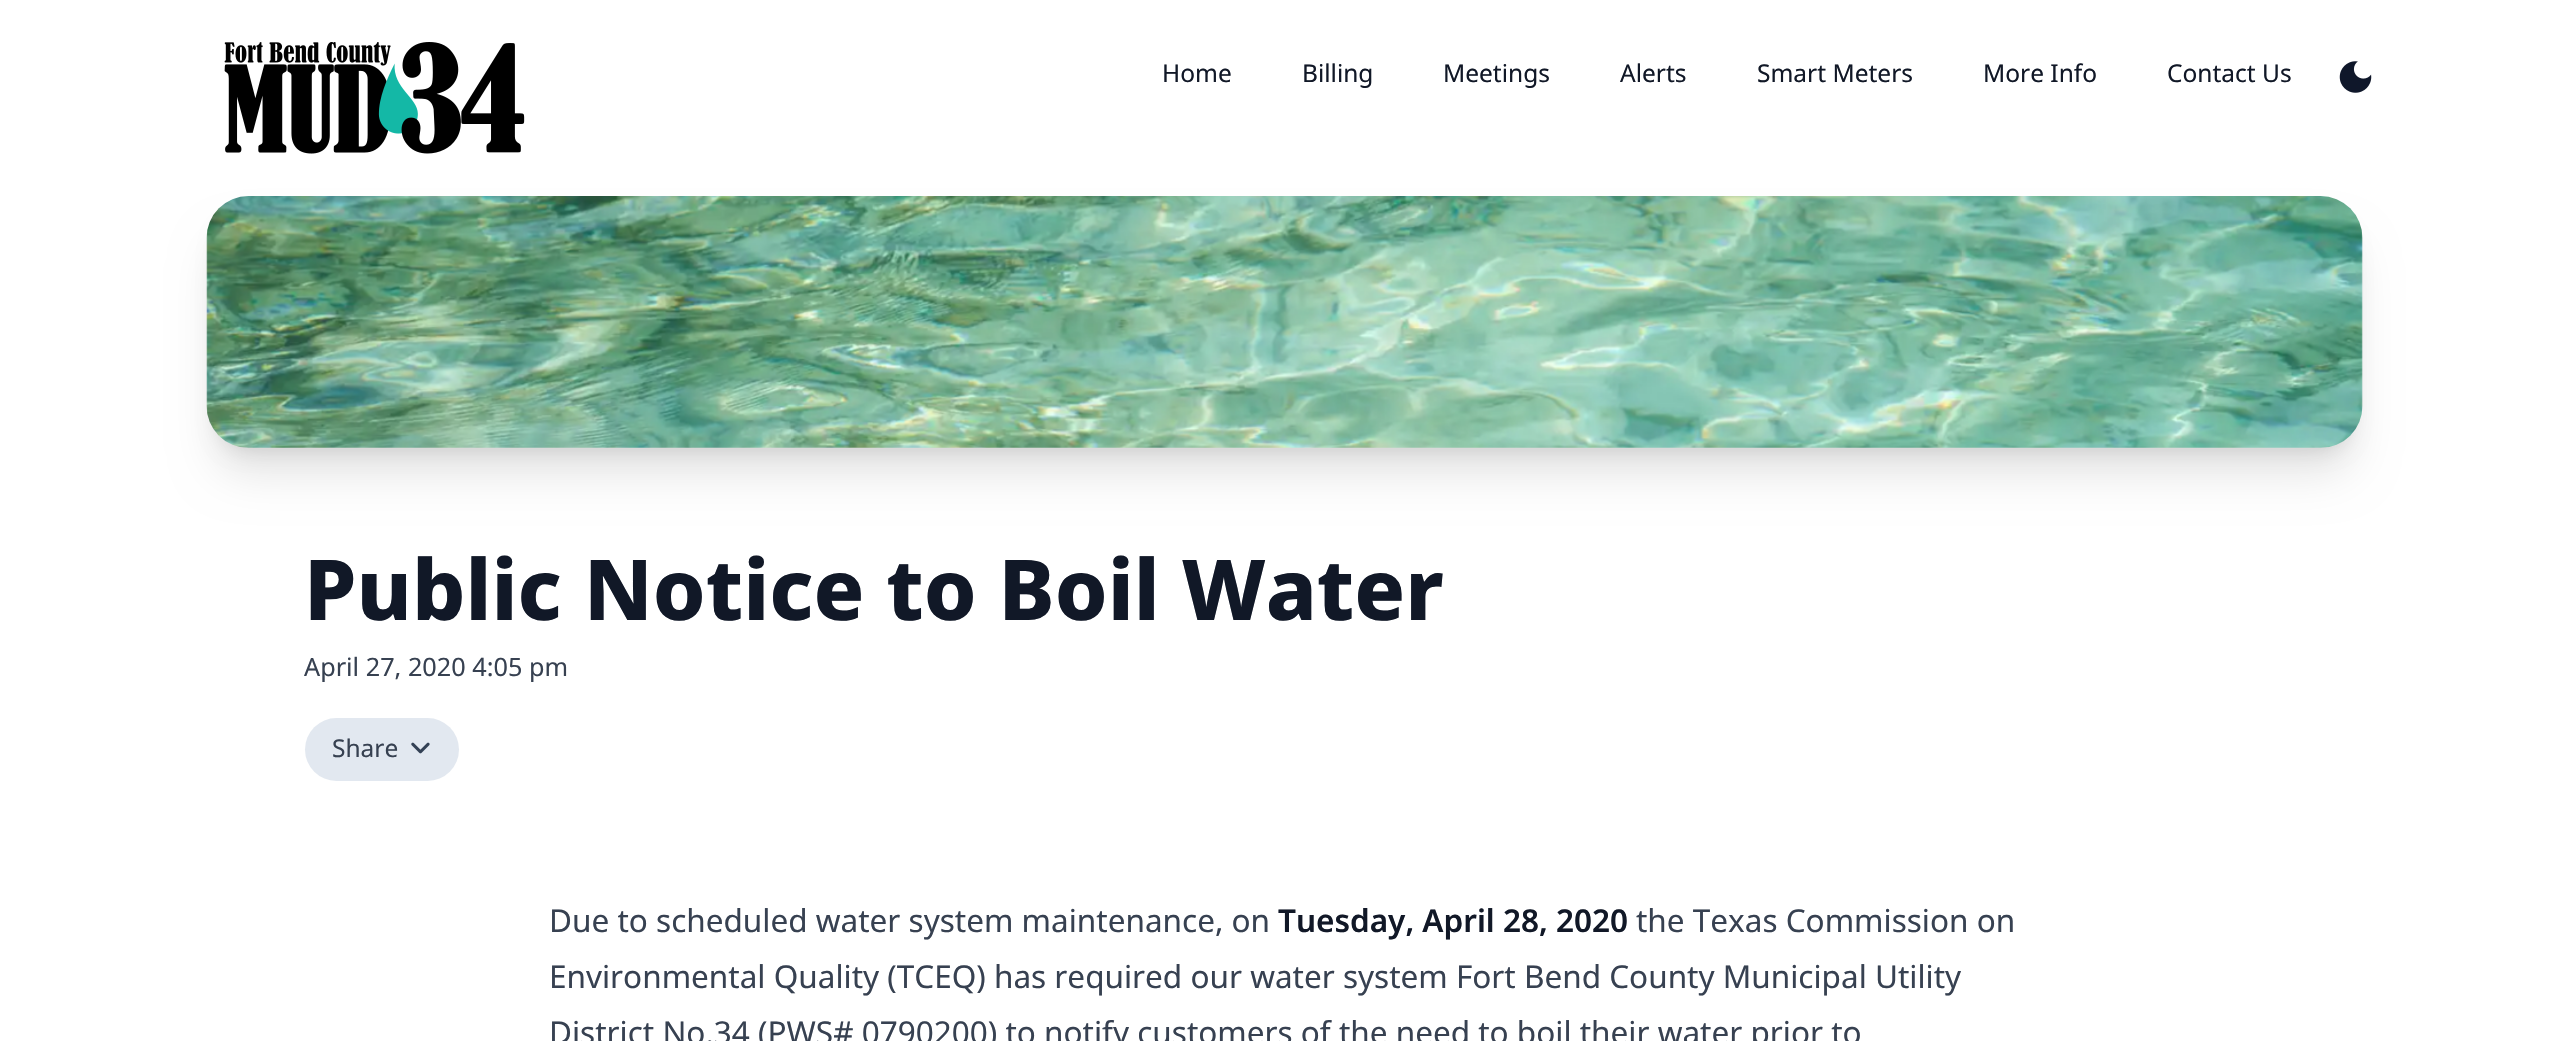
void draw(SkCanvas* canvas) {
	SkPaint fill;
	fill.setAntiAlias(true);
	auto makeFont = [&](const char* family, int weight, float size, bool italic = false) {
		SkFontStyle style(weight, SkFontStyle::kNormal_Width,
			italic ? SkFontStyle::kItalic_Slant : SkFontStyle::kUpright_Slant);
		SkFont result(fontMgr->matchFamilyStyle(family, style), size);
		result.setSubpixel(true);
		return result;
	};
	auto text = [&](const char* s, float x, float y, const SkFont& font) {
		canvas->drawString(s, x, y, font, fill);
	};
	auto roundBox = [&](float l, float t, float r, float b, float radius) {
		canvas->drawRoundRect(SkRect::MakeLTRB(l, t, r, b), radius, radius, fill);
	};
	auto picture = [&](const char* path, float l, float t, float r, float b) {
		auto image = SkImages::DeferredFromEncodedData(SkData::MakeFromFileName(path));
		canvas->drawImageRect(image, SkRect::MakeLTRB(l, t, r, b), SkSamplingOptions());
	};
	canvas->clear(0xFFFFFFFF);
	picture("image0.png", 224, 42, 525, 154);
	picture("image1.png", 2339, 61, 2372, 93);
	fill.setColor(0x1A000000);
	fill.setMaskFilter(SkMaskFilter::MakeBlur(kNormal_SkBlurStyle, 9));
	canvas->drawRoundRect(SkRect::MakeLTRB(217, 221, 2352, 452), 32, 32, fill);
	fill.setMaskFilter(nullptr);
	fill.setMaskFilter(SkMaskFilter::MakeBlur(kNormal_SkBlurStyle, 22));
	canvas->drawRoundRect(SkRect::MakeLTRB(215, 240, 2354, 474), 33, 33, fill);
	fill.setMaskFilter(nullptr);
	picture("image2.png", 206, 196, 2363, 448);
	fill.setColor(0xFFE2E8F0);
	roundBox(305, 718, 459, 781, 31.5f);
	picture("image3.png", 411, 742, 430, 754);
	auto font1 = makeFont("Noto Sans", 400, 24.5f);
	fill.setColor(0xFF111827);
	text("Home", 1162, 82, font1);
	text("Billing", 1302, 82, font1);
	text("Meetings", 1443, 82, font1);
	text("Alerts", 1620, 82, font1);
	text("Smart Meters", 1757, 82, font1);
	text("More Info", 1983, 82, font1);
	text("Contact Us", 2167, 82, font1);
	auto font2 = makeFont("Noto Sans", 800, 84);
	text("Public Notice to Boil Water", 304, 620, font2);
	auto font3 = makeFont("Noto Sans", 400, 25.25f);
	fill.setColor(0xFF374151);
	text("April 27, 2020 4:05 pm", 304, 676, font3);
	text("Share", 332, 757, font1);
	auto font4 = makeFont("Noto Sans", 400, 31.5f);
	text("Due to scheduled water system maintenance, on", 549, 932, font4);
	auto font5 = makeFont("Noto Sans", 600, 31.5f);
	fill.setColor(0xFF111827);
	text("Tuesday, April 28, 2020", 1278, 932, font5);
	fill.setColor(0xFF374151);
	text("the Texas Commission on", 1636, 932, font4);
	text("Environmental Quality (TCEQ) has required our water system Fort Bend County Municipal Utility", 549, 988, font4);
	text("District No.34 (PWS# 0790200) to notify customers of the need to boil their water prior to", 549, 1044, font4);
}
